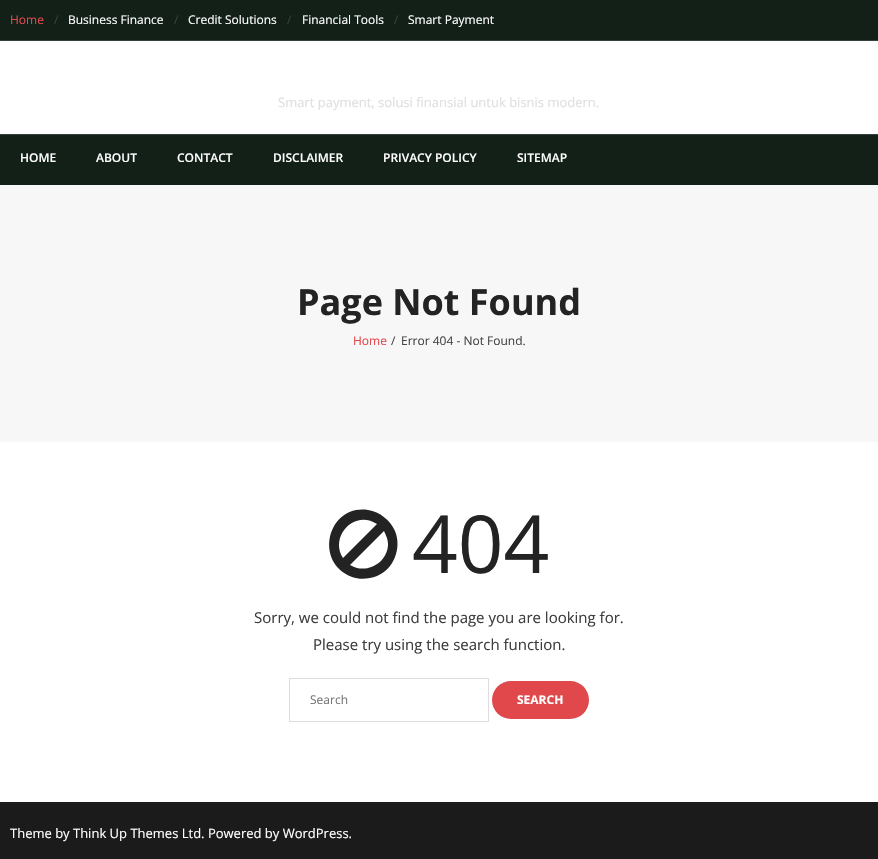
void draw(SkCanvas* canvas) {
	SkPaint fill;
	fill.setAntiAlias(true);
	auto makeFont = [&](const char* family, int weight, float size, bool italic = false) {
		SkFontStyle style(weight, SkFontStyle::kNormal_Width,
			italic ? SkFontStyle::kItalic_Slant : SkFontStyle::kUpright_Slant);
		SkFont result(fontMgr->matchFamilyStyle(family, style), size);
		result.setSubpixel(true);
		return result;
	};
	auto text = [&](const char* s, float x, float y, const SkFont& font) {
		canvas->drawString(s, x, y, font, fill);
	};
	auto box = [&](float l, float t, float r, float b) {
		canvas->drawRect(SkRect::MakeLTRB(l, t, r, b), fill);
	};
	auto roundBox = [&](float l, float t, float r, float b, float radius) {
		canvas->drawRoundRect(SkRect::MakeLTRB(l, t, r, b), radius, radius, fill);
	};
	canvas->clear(0xFFFFFFFF);
	fill.setColor(0xFF122018);
	box(0, 0, 878, 40);
	fill.setColor(0xFF36413B);
	box(0, 40, 878, 41);
	fill.setColor(0xFF122018);
	box(0, 135, 878, 185);
	fill.setColor(0xFF36413B);
	box(0, 134, 878, 135);
	fill.setColor(0xFFF7F7F7);
	box(0, 185, 878, 442);
	fill.setColor(0xFF232323);
	canvas->drawPath(SkPathBuilder().moveTo(388, 544).cubicTo(388, 540, 386, 535, 384, 531).lineTo(350, 565).cubicTo(366, 575, 388, 563, 388, 544).close().moveTo(343, 558).lineTo(377, 524).cubicTo(355, 509, 329, 536, 343, 558).close().moveTo(395, 531).cubicTo(402, 548, 394, 569, 377, 576).cubicTo(369, 579, 360, 580, 352, 577).cubicTo(313, 562, 328, 504, 368, 510).cubicTo(380, 512, 390, 520, 395, 531).close().detach(), fill);
	fill.setStyle(SkPaint::kStroke_Style);
	fill.setStrokeWidth(1);
	fill.setColor(0xFFDDDDDD);
	canvas->drawRect(SkRect::MakeLTRB(289.5f, 678.5f, 488.5f, 721.5f), fill);
	fill.setStyle(SkPaint::kFill_Style);
	fill.setColor(0xFFE0484C);
	roundBox(492, 681, 589, 719, 19);
	fill.setColor(0xFF1B1B1B);
	box(0, 802, 878, 859);
	auto font1 = makeFont("Open Sans", 400, 12);
	fill.setColor(0xFFE0484C);
	text("Home", 10, 24, font1);
	fill.setColor(0xFF36413B);
	text("/", 54, 24, font1);
	fill.setColor(0xFFFFFFFF);
	text("Business Finance", 68, 24, font1);
	fill.setColor(0xFF36413B);
	text("/", 174, 24, font1);
	fill.setColor(0xFFFFFFFF);
	text("Credit Solutions", 188, 24, font1);
	fill.setColor(0xFF36413B);
	text("/", 287, 24, font1);
	fill.setColor(0xFFFFFFFF);
	text("Financial Tools", 302, 24, font1);
	fill.setColor(0xFF36413B);
	text("/", 394, 24, font1);
	fill.setColor(0xFFFFFFFF);
	text("Smart Payment", 408, 24, font1);
	auto font2 = makeFont("Open Sans", 400, 13);
	fill.setColor(0xFFE0E0E0);
	text("Smart payment, solusi finansial untuk bisnis modern.", 278, 107, font2);
	auto font3 = makeFont("Open Sans", 600, 12);
	fill.setColor(0xFFFFFFFF);
	text("HOME", 20, 162, font3);
	text("ABOUT", 96, 162, font3);
	text("CONTACT", 177, 162, font3);
	text("DISCLAIMER", 273, 162, font3);
	text("PRIVACY POLICY", 383, 162, font3);
	text("SITEMAP", 517, 162, font3);
	auto font4 = makeFont("Open Sans", 700, 36);
	fill.setColor(0xFF232323);
	text("Page Not Found", 297, 315, font4);
	fill.setColor(0xFFE0484C);
	text("Home", 353, 345, font1);
	fill.setColor(0xFF454545);
	text("/", 391, 345, font1);
	text("Error 404 - Not Found.", 401, 345, font1);
	auto font5 = makeFont("Open Sans", 400, 80);
	fill.setColor(0xFF232323);
	text("404", 412, 573, font5);
	auto font6 = makeFont("Open Sans", 400, 15);
	fill.setColor(0xFF3D3D3D);
	text("Sorry, we could not find the page you are looking for.", 254, 623, font6);
	text("Please try using the search function.", 313, 650, font6);
	fill.setColor(0xFF757575);
	text("Search", 310, 704, font1);
	auto font7 = makeFont("Open Sans", 700, 12);
	fill.setColor(0xFFFFFFFF);
	text("SEARCH", 517, 704, font7);
	text("Theme by Think Up Themes Ltd. Powered by WordPress.", 10, 838, font2);
}
